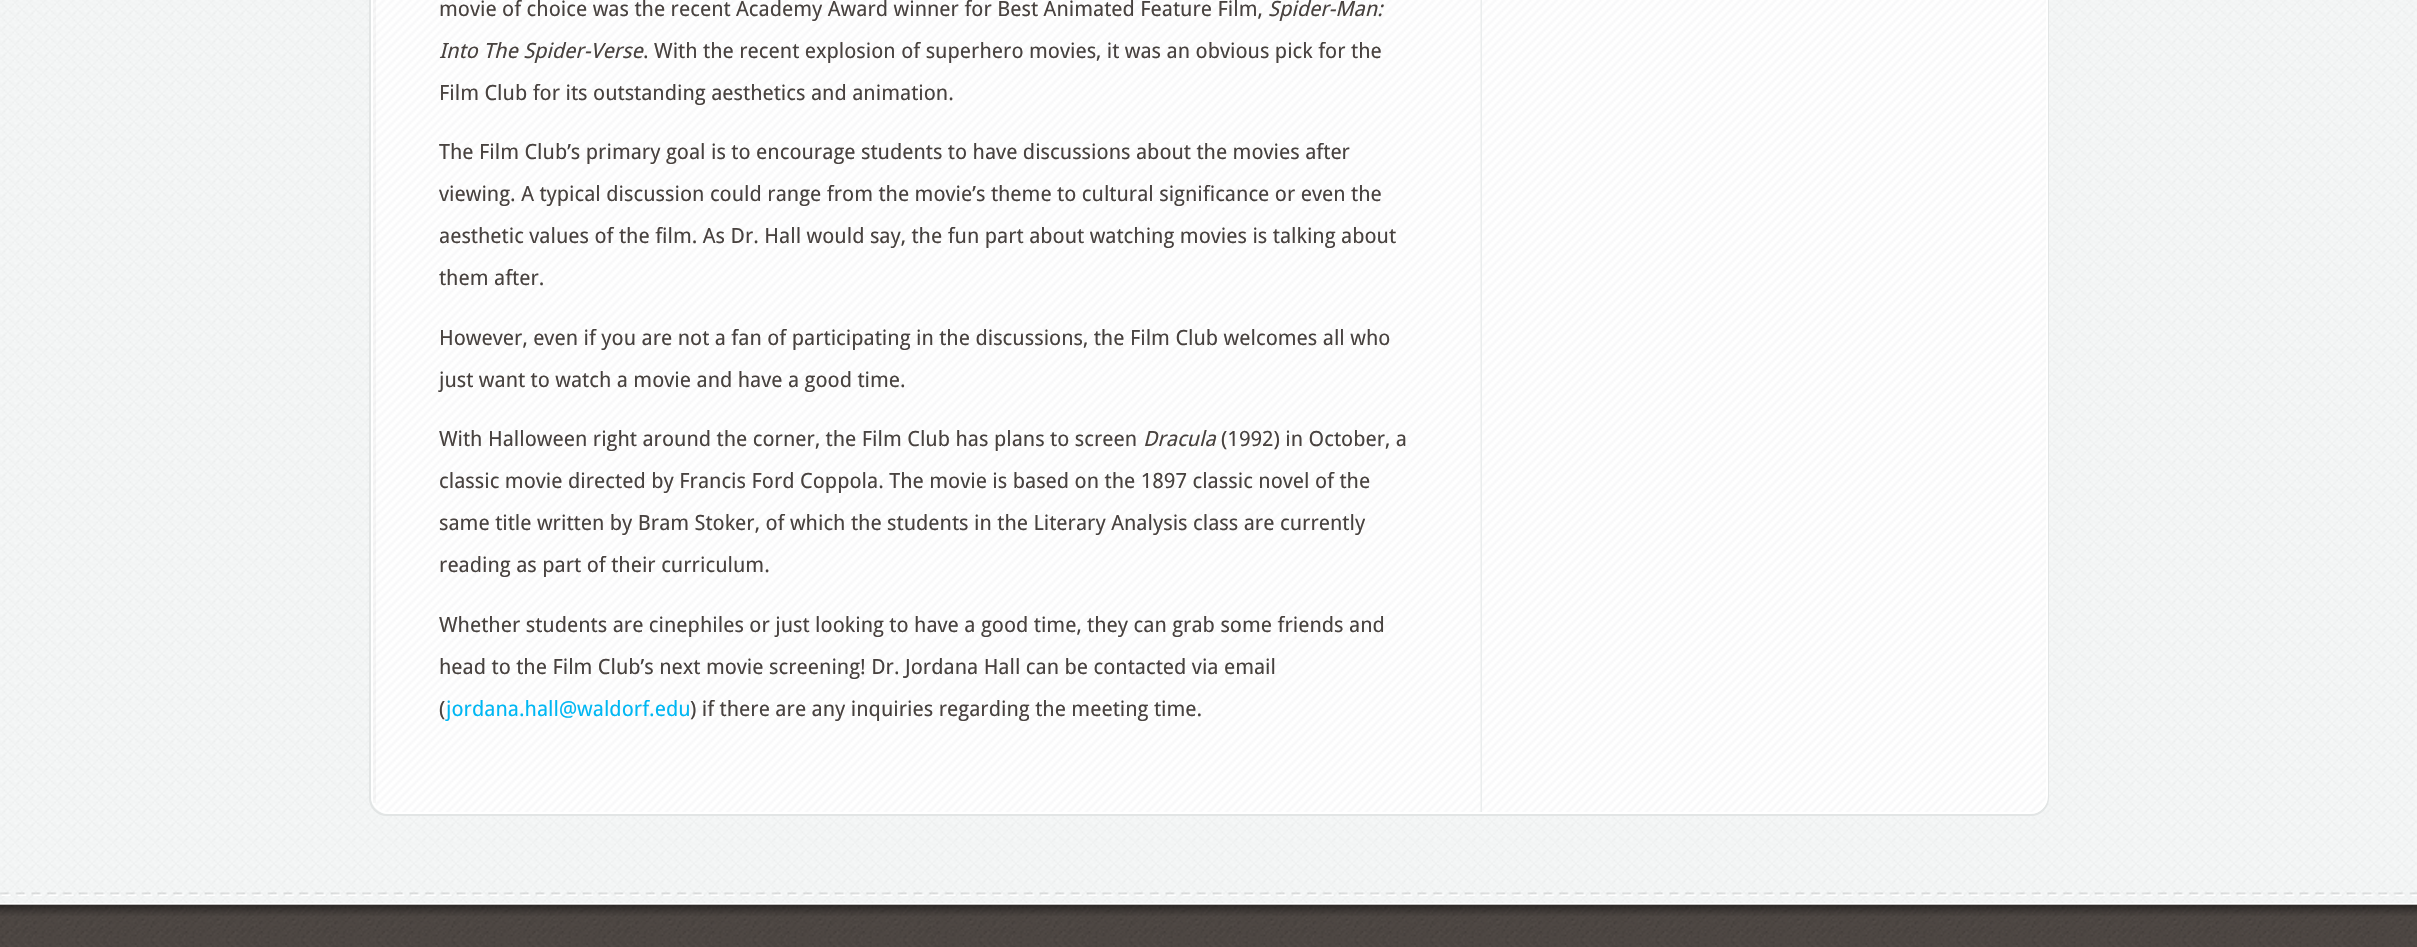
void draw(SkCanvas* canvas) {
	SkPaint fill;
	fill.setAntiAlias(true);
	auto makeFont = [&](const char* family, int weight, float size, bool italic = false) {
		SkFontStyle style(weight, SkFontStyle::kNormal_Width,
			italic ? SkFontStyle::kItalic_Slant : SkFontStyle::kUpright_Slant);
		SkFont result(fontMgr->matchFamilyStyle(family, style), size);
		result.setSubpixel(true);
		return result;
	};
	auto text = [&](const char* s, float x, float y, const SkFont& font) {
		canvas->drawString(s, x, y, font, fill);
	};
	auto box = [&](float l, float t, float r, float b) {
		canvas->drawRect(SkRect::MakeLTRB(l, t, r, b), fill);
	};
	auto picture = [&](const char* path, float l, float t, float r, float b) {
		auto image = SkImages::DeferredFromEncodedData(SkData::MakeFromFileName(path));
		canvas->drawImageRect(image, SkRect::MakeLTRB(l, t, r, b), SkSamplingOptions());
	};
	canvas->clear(0xFFFAFCFC);
	picture("image0.png", 0, 0, 2417, 903);
	fill.setColor(0xFFFFFFFF);
	box(0, 903, 2417, 905);
	fill.setStyle(SkPaint::kStroke_Style);
	fill.setStrokeWidth(2);
	fill.setColor(0xFFE2E5E5);
	canvas->drawRoundRect(SkRect::MakeLTRB(370, -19, 2048, 815), 17, 17, fill);
	picture("image1.png", 371, 0, 2047, 813);
	fill.setColor(0xFFFFFFFF);
	canvas->drawRoundRect(SkRect::MakeLTRB(372, -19, 2047, 813), 17, 17, fill);
	fill.setStyle(SkPaint::kFill_Style);
	fill.setColor(0x08000000);
	box(373, 0, 376, 803);
	picture("image2.png", 1480, 0, 1482, 812);
	picture("image3.png", 0, 892, 2417, 896);
	picture("image4.png", 0, 904, 2417, 947);
	picture("image5.png", 0, 904, 2417, 916);
	auto font1 = makeFont("Droid Sans", 400, 21);
	fill.setColor(0xFF48423F);
	text("movie of choice was the recent Academy Award winner for Best Animated Feature Film,", 439, 16, font1);
	auto font2 = makeFont("Droid Sans", 400, 21, true);
	text("Spider-Man:", 1268, 16, font2);
	text("Into The Spider-Verse", 439, 58, font2);
	text(". With the recent explosion of superhero movies, it was an obvious pick for the", 643, 58, font1);
	text("Film Club for its outstanding aesthetics and animation.", 439, 100, font1);
	text("The Film Club’s primary goal is to encourage students to have discussions about the movies after", 439, 159, font1);
	text("viewing. A typical discussion could range from the movie’s theme to cultural significance or even the", 439, 201, font1);
	text("aesthetic values of the film. As Dr. Hall would say, the fun part about watching movies is talking about", 439, 243, font1);
	text("them after.", 439, 285, font1);
	text("However, even if you are not a fan of participating in the discussions, the Film Club welcomes all who", 439, 345, font1);
	text("just want to watch a movie and have a good time.", 439, 387, font1);
	text("With Halloween right around the corner, the Film Club has plans to screen", 439, 446, font1);
	text("Dracula", 1143, 446, font2);
	text("(1992) in October, a", 1221, 446, font1);
	text("classic movie directed by Francis Ford Coppola. The movie is based on the 1897 classic novel of the", 439, 488, font1);
	text("same title written by Bram Stoker, of which the students in the Literary Analysis class are currently", 439, 530, font1);
	text("reading as part of their curriculum.", 439, 572, font1);
	text("Whether students are cinephiles or just looking to have a good time, they can grab some friends and", 439, 632, font1);
	text("head to the Film Club’s next movie screening! Dr. Jordana Hall can be contacted via email", 439, 674, font1);
	text("(", 439, 716, font1);
	fill.setColor(0xFF00B7F3);
	text("jordana.hall@waldorf.edu", 446, 716, font1);
	fill.setColor(0xFF48423F);
	text(") if there are any inquiries regarding the meeting time.", 690, 716, font1);
}
